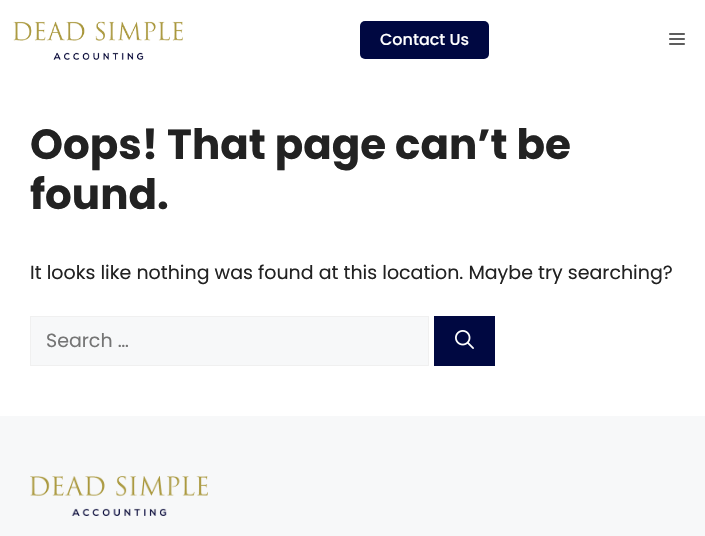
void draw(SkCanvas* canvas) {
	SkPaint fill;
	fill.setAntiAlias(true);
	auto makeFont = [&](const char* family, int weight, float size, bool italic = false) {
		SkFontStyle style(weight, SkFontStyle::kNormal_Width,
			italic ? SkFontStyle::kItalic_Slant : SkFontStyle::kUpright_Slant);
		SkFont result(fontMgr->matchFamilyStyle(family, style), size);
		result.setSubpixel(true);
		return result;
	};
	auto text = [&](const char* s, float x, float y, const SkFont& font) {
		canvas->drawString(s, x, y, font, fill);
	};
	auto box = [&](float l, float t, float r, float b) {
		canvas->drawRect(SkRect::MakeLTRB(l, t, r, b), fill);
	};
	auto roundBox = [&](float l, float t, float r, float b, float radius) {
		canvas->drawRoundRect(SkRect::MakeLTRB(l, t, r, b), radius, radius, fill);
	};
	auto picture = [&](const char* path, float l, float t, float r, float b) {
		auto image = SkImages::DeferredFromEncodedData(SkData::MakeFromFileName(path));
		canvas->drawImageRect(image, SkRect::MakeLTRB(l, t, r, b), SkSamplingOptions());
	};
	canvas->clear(0xFFFFFFFF);
	picture("image0.png", 13, 21, 183, 60);
	fill.setColor(0xFF000841);
	roundBox(360, 21, 489, 59, 5);
	picture("image1.png", 669, 33, 685, 45);
	fill.setColor(0xFFF7F8F9);
	canvas->drawRect(SkRect::MakeLTRB(30.5f, 316.5f, 428.5f, 365.5f), fill);
	fill.setStyle(SkPaint::kStroke_Style);
	fill.setStrokeWidth(1);
	fill.setColor(0xFFF0F0F0);
	canvas->drawRect(SkRect::MakeLTRB(30.5f, 316.5f, 428.5f, 365.5f), fill);
	fill.setStyle(SkPaint::kFill_Style);
	fill.setColor(0xFF000841);
	box(434, 316, 495, 366);
	picture("image2.png", 455, 330, 474, 349);
	fill.setColor(0xFFF7F8F9);
	box(0, 416, 705, 536);
	picture("image3.png", 30, 476, 208, 516);
	auto font1 = makeFont("Poppins", 500, 16);
	fill.setColor(0xFFFFFFFF);
	text("Contact Us", 380, 45, font1);
	auto font2 = makeFont("Poppins", 700, 42);
	fill.setColor(0xFF222222);
	text("Oops! That page can’t be", 30, 159, font2);
	text("found.", 30, 209, font2);
	auto font3 = makeFont("Poppins", 400, 19);
	text("It looks like nothing was found at this location. Maybe try searching?", 30, 279, font3);
	fill.setColor(0xFF757575);
	text("Search …", 46, 347, font3);
}
